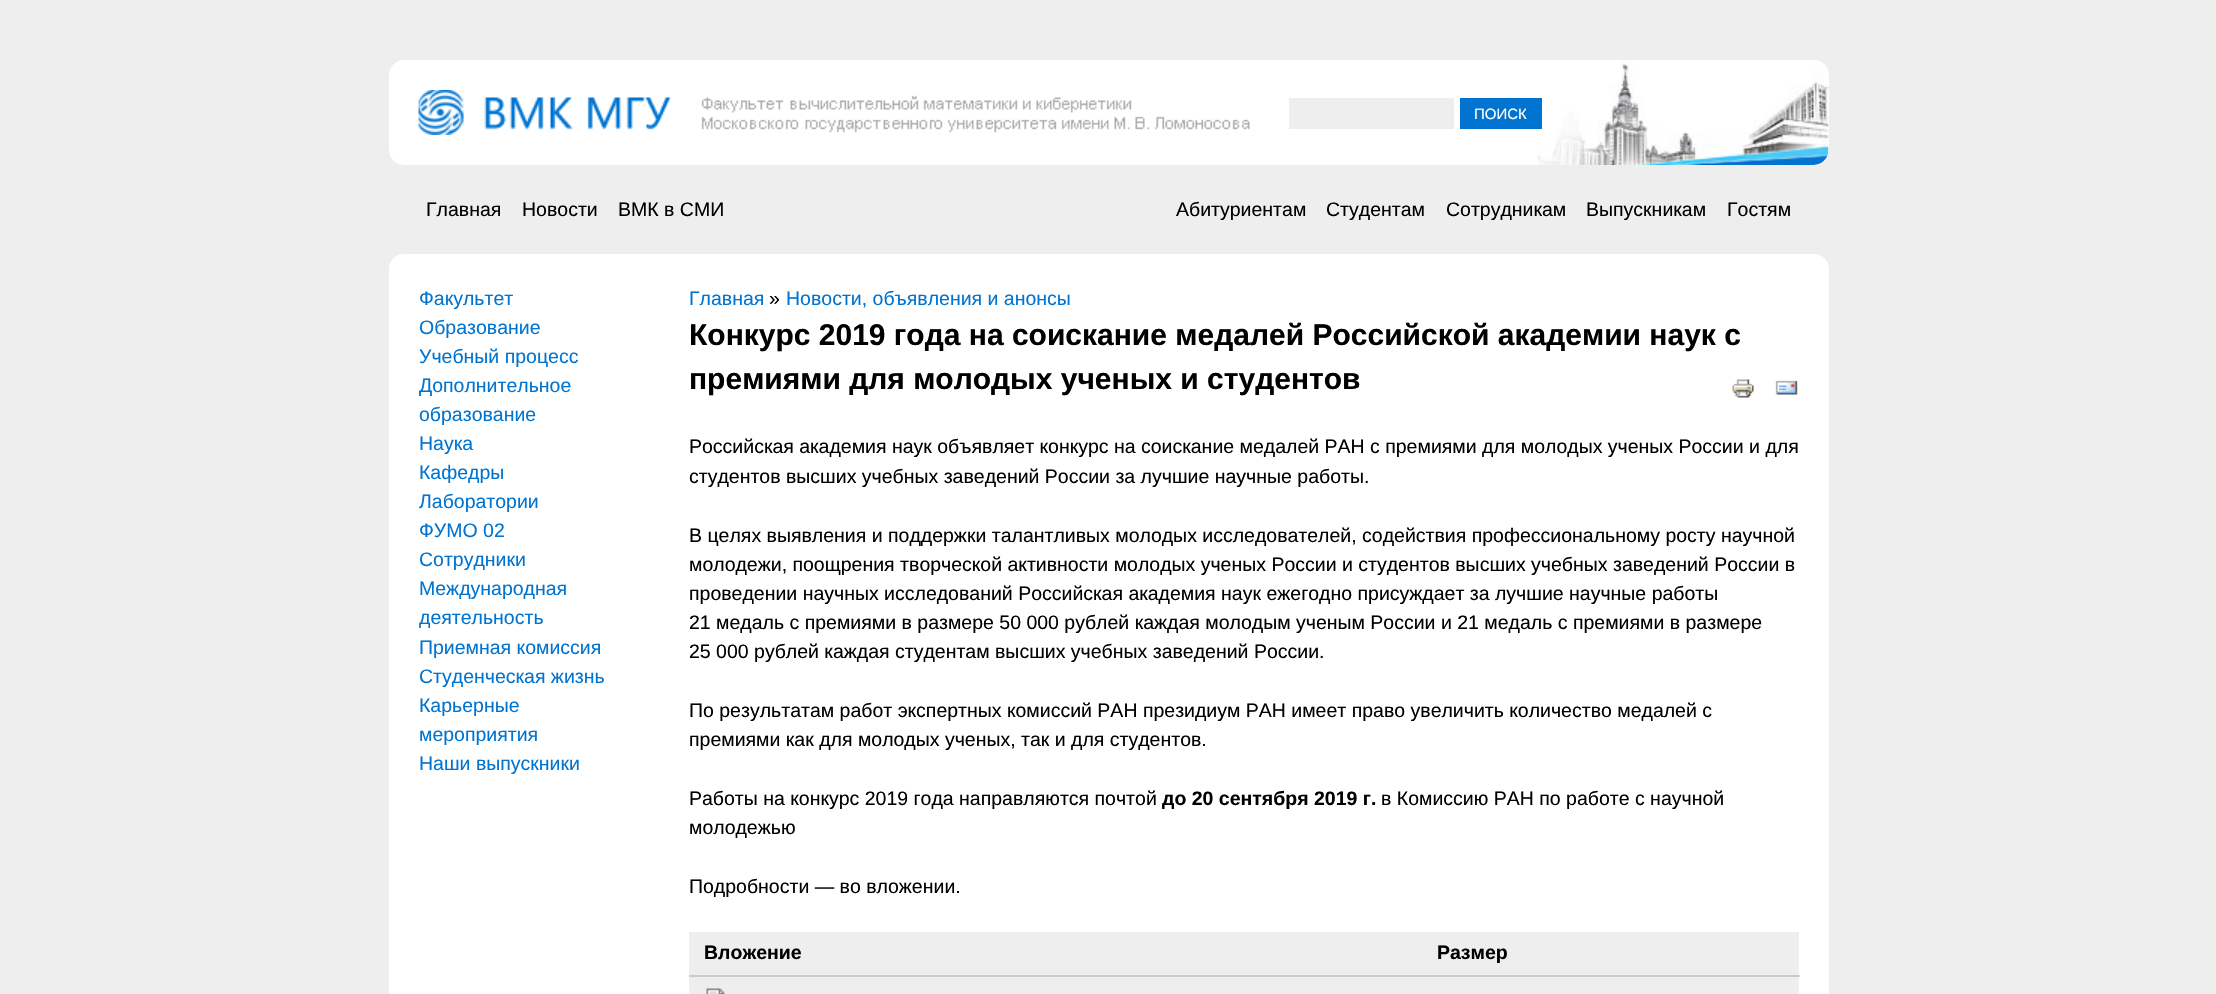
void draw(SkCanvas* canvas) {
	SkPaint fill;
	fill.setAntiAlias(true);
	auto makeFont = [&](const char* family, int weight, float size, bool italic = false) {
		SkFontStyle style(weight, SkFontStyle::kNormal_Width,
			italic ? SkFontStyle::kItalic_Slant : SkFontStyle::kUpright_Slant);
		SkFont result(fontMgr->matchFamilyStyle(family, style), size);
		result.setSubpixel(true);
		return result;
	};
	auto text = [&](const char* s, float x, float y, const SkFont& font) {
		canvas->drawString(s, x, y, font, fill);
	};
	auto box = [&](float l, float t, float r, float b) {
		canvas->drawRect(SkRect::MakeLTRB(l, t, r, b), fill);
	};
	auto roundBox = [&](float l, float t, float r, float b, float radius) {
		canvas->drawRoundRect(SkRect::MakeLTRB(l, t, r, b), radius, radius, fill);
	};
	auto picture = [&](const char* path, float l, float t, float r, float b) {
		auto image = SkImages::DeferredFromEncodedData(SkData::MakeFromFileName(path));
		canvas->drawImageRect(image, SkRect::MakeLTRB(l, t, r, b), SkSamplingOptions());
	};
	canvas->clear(0xFFEEEEEE);
	fill.setColor(0xFFFFFFFF);
	roundBox(389, 60, 1829, 165, 15);
	picture("image0.png", 1537, 60, 1829, 165);
	picture("image1.png", 418, 90, 1250, 135);
	fill.setColor(0xFFEEEEEE);
	box(1289, 98, 1454, 129);
	fill.setColor(0xFF0074D0);
	box(1460, 98, 1542, 129);
	fill.setColor(0xFFFFFFFF);
	roundBox(389, 254, 1829, 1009, 15);
	picture("image2.png", 1732, 379, 1754, 398);
	picture("image3.png", 1775, 380, 1798, 395);
	fill.setColor(0xFFEEEEEE);
	box(689, 932, 1799, 975);
	fill.setColor(0xFFCCCCCC);
	box(689, 975, 1800, 977);
	fill.setColor(0xFFEEEEEE);
	box(689, 977, 1799, 994);
	picture("image4.png", 706, 988, 725, 994);
	auto font1 = makeFont("Liberation Sans", 400, 15);
	fill.setColor(0xFFFFFFFF);
	text("ПОИСК", 1474, 119, font1);
	auto font2 = makeFont("Liberation Sans", 400, 19.5f);
	fill.setColor(0xFF000000);
	text("Главная", 426, 216, font2);
	text("Новости", 522, 216, font2);
	text("ВМК в СМИ", 618, 216, font2);
	text("Абитуриентам", 1176, 216, font2);
	text("Студентам", 1326, 216, font2);
	text("Сотрудникам", 1446, 216, font2);
	text("Выпускникам", 1586, 216, font2);
	text("Гостям", 1727, 216, font2);
	fill.setColor(0xFF0074D0);
	text("Факультет", 419, 305, font2);
	text("Образование", 419, 334, font2);
	text("Учебный процесс", 419, 363, font2);
	text("Дополнительное", 419, 392, font2);
	text("образование", 419, 421, font2);
	text("Наука", 419, 450, font2);
	text("Кафедры", 419, 479, font2);
	text("Лаборатории", 419, 508, font2);
	text("ФУМО 02", 419, 537, font2);
	text("Сотрудники", 419, 566, font2);
	text("Международная", 419, 595, font2);
	text("деятельность", 419, 624, font2);
	text("Приемная комиссия", 419, 654, font2);
	text("Студенческая жизнь", 419, 683, font2);
	text("Карьерные", 419, 712, font2);
	text("мероприятия", 419, 741, font2);
	text("Наши выпускники", 419, 770, font2);
	text("Главная", 689, 305, font2);
	fill.setColor(0xFF000000);
	text("»", 769, 305, font2);
	fill.setColor(0xFF0074D0);
	text("Новости, объявления и анонсы", 786, 305, font2);
	auto font3 = makeFont("Liberation Sans", 700, 30);
	fill.setColor(0xFF000000);
	text("Конкурс 2019 года на соискание медалей Российской академии наук с", 689, 345, font3);
	text("премиями для молодых ученых и студентов", 689, 389, font3);
	text("Российская академия наук объявляет конкурс на соискание медалей РАН с премиями для молодых ученых России и для", 689, 453, font2);
	text("студентов высших учебных заведений России за лучшие научные работы.", 689, 483, font2);
	text("В целях выявления и поддержки талантливых молодых исследователей, содействия профессиональному росту научной", 689, 542, font2);
	text("молодежи, поощрения творческой активности молодых ученых России и студентов высших учебных заведений России в", 689, 571, font2);
	text("проведении научных исследований Российская академия наук ежегодно присуждает за лучшие научные работы", 689, 600, font2);
	text("21 медаль с премиями в размере 50 000 рублей каждая молодым ученым России и 21 медаль с премиями в размере", 689, 629, font2);
	text("25 000 рублей каждая студентам высших учебных заведений России.", 689, 658, font2);
	text("По результатам работ экспертных комиссий РАН президиум РАН имеет право увеличить количество медалей с", 689, 717, font2);
	text("премиями как для молодых ученых, так и для студентов.", 689, 746, font2);
	text("Работы на конкурс 2019 года направляются почтой", 689, 805, font2);
	auto font4 = makeFont("Liberation Sans", 700, 19.5f);
	text("до 20 сентября 2019 г.", 1162, 805, font4);
	text("в Комиссию РАН по работе с научной", 1381, 805, font2);
	text("молодежью", 689, 834, font2);
	text("Подробности — во вложении.", 689, 893, font2);
	text("Вложение", 704, 959, font4);
	text("Размер", 1437, 959, font4);
}
